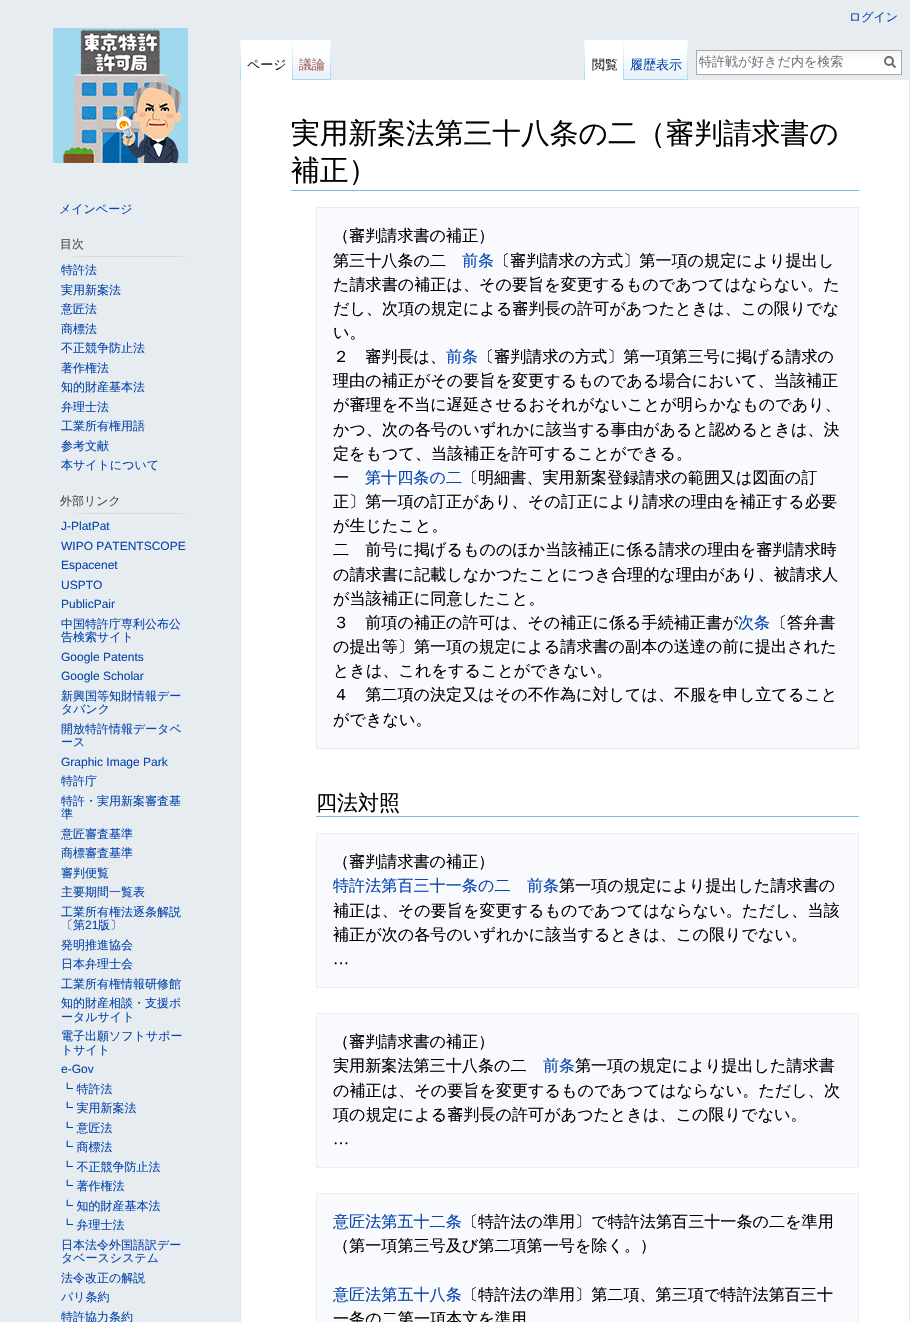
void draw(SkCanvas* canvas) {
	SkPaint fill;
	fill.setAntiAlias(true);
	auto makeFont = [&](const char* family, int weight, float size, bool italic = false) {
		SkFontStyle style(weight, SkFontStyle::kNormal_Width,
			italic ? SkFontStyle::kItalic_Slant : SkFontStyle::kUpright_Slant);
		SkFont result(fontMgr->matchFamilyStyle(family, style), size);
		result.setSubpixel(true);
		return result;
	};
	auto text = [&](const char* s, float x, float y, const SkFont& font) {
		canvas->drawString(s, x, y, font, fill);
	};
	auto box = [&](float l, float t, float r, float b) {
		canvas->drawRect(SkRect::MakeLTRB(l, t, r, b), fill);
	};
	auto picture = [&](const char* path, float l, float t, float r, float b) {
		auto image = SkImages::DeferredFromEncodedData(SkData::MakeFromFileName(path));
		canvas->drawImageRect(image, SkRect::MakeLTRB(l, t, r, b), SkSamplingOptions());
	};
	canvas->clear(0xFFE6ECF0);
	fill.setColor(0xFFFFFFFF);
	canvas->drawRect(SkRect::MakeLTRB(240.5f, 79.5f, 909.5f, 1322.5f), fill);
	fill.setStyle(SkPaint::kStroke_Style);
	fill.setStrokeWidth(1);
	fill.setColor(0xFFD7EDFC);
	canvas->drawRect(SkRect::MakeLTRB(240.5f, 79.5f, 909.5f, 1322.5f), fill);
	fill.setStyle(SkPaint::kFill_Style);
	fill.setColor(0xFFE6ECF0);
	box(240, 79, 910, 80);
	picture("image0.png", 240, 40, 241, 80);
	fill.setColor(0xFFFFFFFF);
	box(241, 40, 292, 80);
	picture("image0.png", 292, 40, 293, 80);
	picture("image1.png", 293, 40, 331, 80);
	picture("image2.png", 330, 40, 331, 79);
	picture("image0.png", 584, 40, 585, 80);
	box(585, 40, 623, 80);
	picture("image0.png", 623, 40, 624, 80);
	picture("image3.png", 624, 40, 688, 80);
	picture("image2.png", 687, 40, 688, 79);
	box(697, 59, 901, 74);
	picture("image4.png", 697, 51, 901, 59);
	fill.setStyle(SkPaint::kStroke_Style);
	fill.setColor(0xFFAAAAAA);
	canvas->drawRect(SkRect::MakeLTRB(696.5f, 50.5f, 901.5f, 74.5f), fill);
	fill.setStrokeWidth(2);
	fill.setColor(0xFF6C6C6C);
	canvas->drawPath(SkPathBuilder().moveTo(895.5f, 67.5f).lineTo(891.5f, 63.5f).detach(), fill);
	canvas->drawCircle(889, 61, 4, fill);
	picture("image5.png", 53, 28, 188, 163);
	picture("image6.png", 61, 256, 190, 257);
	picture("image6.png", 61, 513, 190, 514);
	fill.setStyle(SkPaint::kFill_Style);
	fill.setColor(0xFF81B9DE);
	box(291, 190, 859, 191);
	fill.setColor(0xFFF9FAFE);
	canvas->drawRect(SkRect::MakeLTRB(316.5f, 207.5f, 858.5f, 748.5f), fill);
	fill.setStyle(SkPaint::kStroke_Style);
	fill.setStrokeWidth(1);
	fill.setColor(0xFFEAECF0);
	canvas->drawRect(SkRect::MakeLTRB(316.5f, 207.5f, 858.5f, 748.5f), fill);
	fill.setStyle(SkPaint::kFill_Style);
	fill.setColor(0xFF81B9DE);
	box(316, 816, 859, 817);
	fill.setColor(0xFFF9FAFE);
	canvas->drawRect(SkRect::MakeLTRB(316.5f, 833.5f, 858.5f, 987.5f), fill);
	fill.setStyle(SkPaint::kStroke_Style);
	fill.setColor(0xFFEAECF0);
	canvas->drawRect(SkRect::MakeLTRB(316.5f, 833.5f, 858.5f, 987.5f), fill);
	fill.setStyle(SkPaint::kFill_Style);
	fill.setColor(0xFFF9FAFE);
	canvas->drawRect(SkRect::MakeLTRB(316.5f, 1013.5f, 858.5f, 1167.5f), fill);
	fill.setStyle(SkPaint::kStroke_Style);
	fill.setColor(0xFFEAECF0);
	canvas->drawRect(SkRect::MakeLTRB(316.5f, 1013.5f, 858.5f, 1167.5f), fill);
	fill.setStyle(SkPaint::kFill_Style);
	fill.setColor(0xFFF9FAFE);
	canvas->drawRect(SkRect::MakeLTRB(316.5f, 1193.5f, 858.5f, 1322.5f), fill);
	fill.setStyle(SkPaint::kStroke_Style);
	fill.setColor(0xFFEAECF0);
	canvas->drawRect(SkRect::MakeLTRB(316.5f, 1193.5f, 858.5f, 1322.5f), fill);
	auto font1 = makeFont("WenQuanYi Zen Hei", 500, 12);
	fill.setStyle(SkPaint::kFill_Style);
	fill.setColor(0xFF0645AD);
	text("ログイン", 849, 21, font1);
	auto font2 = makeFont("WenQuanYi Zen Hei", 500, 13);
	fill.setColor(0xFF222222);
	text("ページ", 247, 69, font2);
	fill.setColor(0xFFA55858);
	text("議論", 299, 69, font2);
	fill.setColor(0xFF222222);
	text("閲覧", 592, 69, font2);
	fill.setColor(0xFF0645AD);
	text("履歴表示", 630, 69, font2);
	fill.setColor(0xFF72777D);
	text("特許戦が好きだ内を検索", 699, 66, font2);
	fill.setColor(0xFF0645AD);
	text("メインページ", 59, 213, font1);
	fill.setColor(0xFF4D4D4D);
	text("目次", 60, 248, font1);
	fill.setColor(0xFF0645AD);
	text("特許法", 61, 274, font1);
	text("実用新案法", 61, 294, font1);
	text("意匠法", 61, 313, font1);
	text("商標法", 61, 333, font1);
	text("不正競争防止法", 61, 352, font1);
	text("著作権法", 61, 372, font1);
	text("知的財産基本法", 61, 391, font1);
	text("弁理士法", 61, 411, font1);
	text("工業所有権用語", 61, 430, font1);
	text("参考文献", 61, 450, font1);
	text("本サイトについて", 61, 469, font1);
	fill.setColor(0xFF4D4D4D);
	text("外部リンク", 60, 505, font1);
	auto font3 = makeFont("Liberation Sans", 400, 12);
	fill.setColor(0xFF0645AD);
	text("J-PlatPat", 61, 530, font3);
	text("WIPO PATENTSCOPE", 61, 550, font3);
	text("Espacenet", 61, 569, font3);
	text("USPTO", 61, 589, font3);
	text("PublicPair", 61, 608, font3);
	text("中国特許庁専利公布公", 61, 628, font1);
	text("告検索サイト", 61, 641, font1);
	text("Google Patents", 61, 661, font3);
	text("Google Scholar", 61, 680, font3);
	text("新興国等知財情報デー", 61, 700, font1);
	text("タバンク", 61, 713, font1);
	text("開放特許情報データベ", 61, 733, font1);
	text("ース", 61, 746, font1);
	text("Graphic Image Park", 61, 766, font3);
	text("特許庁", 61, 785, font1);
	text("特許・実用新案審査基", 61, 805, font1);
	text("準", 61, 818, font1);
	text("意匠審査基準", 61, 838, font1);
	text("商標審査基準", 61, 857, font1);
	text("審判便覧", 61, 877, font1);
	text("主要期間一覧表", 61, 896, font1);
	text("工業所有権法逐条解説", 61, 916, font1);
	text("〔第", 61, 929, font1);
	text("21", 85, 929, font3);
	text("版〕", 98, 929, font1);
	text("発明推進協会", 61, 949, font1);
	text("日本弁理士会", 61, 968, font1);
	text("工業所有権情報研修館", 61, 988, font1);
	text("知的財産相談・支援ポ", 61, 1007, font1);
	text("ータルサイト", 61, 1021, font1);
	text("電子出願ソフトサポー", 61, 1040, font1);
	text("トサイト", 61, 1054, font1);
	text("e-Gov", 61, 1073, font3);
	text("┗ 特許法", 61, 1093, font1);
	text("┗ 実用新案法", 61, 1112, font1);
	text("┗ 意匠法", 61, 1132, font1);
	text("┗ 商標法", 61, 1151, font1);
	text("┗ 不正競争防止法", 61, 1171, font1);
	text("┗ 著作権法", 61, 1190, font1);
	text("┗ 知的財産基本法", 61, 1210, font1);
	text("┗ 弁理士法", 61, 1229, font1);
	text("日本法令外国語訳デー", 61, 1249, font1);
	text("タベースシステム", 61, 1262, font1);
	text("法令改正の解説", 61, 1282, font1);
	text("パリ条約", 61, 1301, font1);
	text("特許協力条約", 61, 1321, font1);
	auto font4 = makeFont("WenQuanYi Zen Hei", 500, 28.75f);
	fill.setColor(0xFF000000);
	text("実用新案法第三十八条の二（審判請求書の", 291, 143, font4);
	text("補正）", 291, 180, font4);
	auto font5 = makeFont("WenQuanYi Zen Hei", 500, 16.1f);
	text("（審判請求書の補正）", 333, 241, font5);
	text("第三十八条の二", 333, 266, font5);
	fill.setColor(0xFF0645AD);
	text("前条", 462, 266, font5);
	fill.setColor(0xFF000000);
	text("〔審判請求の方式〕第一項の規定により提出し", 494, 266, font5);
	text("た請求書の補正は、その要旨を変更するものであつてはならない。た", 333, 290, font5);
	text("だし、次項の規定による審判長の許可があつたときは、この限りでな", 333, 314, font5);
	text("い。", 333, 338, font5);
	text("２　審判長は、", 333, 362, font5);
	fill.setColor(0xFF0645AD);
	text("前条", 446, 362, font5);
	fill.setColor(0xFF000000);
	text("〔審判請求の方式〕第一項第三号に掲げる請求の", 478, 362, font5);
	text("理由の補正がその要旨を変更するものである場合において、当該補正", 333, 386, font5);
	text("が審理を不当に遅延させるおそれがないことが明らかなものであり、", 333, 410, font5);
	text("かつ、次の各号のいずれかに該当する事由があると認めるときは、決", 333, 435, font5);
	text("定をもつて、当該補正を許可することができる。", 333, 459, font5);
	text("一", 333, 483, font5);
	fill.setColor(0xFF0645AD);
	text("第十四条の二", 365, 483, font5);
	fill.setColor(0xFF000000);
	text("〔明細書、実用新案登録請求の範囲又は図面の訂", 462, 483, font5);
	text("正〕第一項の訂正があり、その訂正により請求の理由を補正する必要", 333, 507, font5);
	text("が生じたこと。", 333, 531, font5);
	text("二　前号に掲げるもののほか当該補正に係る請求の理由を審判請求時", 333, 555, font5);
	text("の請求書に記載しなかつたことにつき合理的な理由があり、被請求人", 333, 580, font5);
	text("が当該補正に同意したこと。", 333, 604, font5);
	text("３　前項の補正の許可は、その補正に係る手続補正書が", 333, 628, font5);
	fill.setColor(0xFF0645AD);
	text("次条", 738, 628, font5);
	fill.setColor(0xFF000000);
	text("〔答弁書", 771, 628, font5);
	text("の提出等〕第一項の規定による請求書の副本の送達の前に提出された", 333, 652, font5);
	text("ときは、これをすることができない。", 333, 676, font5);
	text("４　第二項の決定又はその不作為に対しては、不服を申し立てること", 333, 700, font5);
	text("ができない。", 333, 725, font5);
	auto font6 = makeFont("WenQuanYi Zen Hei", 500, 21);
	text("四法対照", 316, 810, font6);
	text("（審判請求書の補正）", 333, 867, font5);
	fill.setColor(0xFF0645AD);
	text("特許法第百三十一条の二", 333, 891, font5);
	text("前条", 527, 891, font5);
	fill.setColor(0xFF000000);
	text("第一項の規定により提出した請求書の", 559, 891, font5);
	text("補正は、その要旨を変更するものであつてはならない。ただし、当該", 333, 916, font5);
	text("補正が次の各号のいずれかに該当するときは、この限りでない。", 333, 940, font5);
	auto font7 = makeFont("Liberation Serif", 400, 16.1f);
	text("…", 333, 964, font7);
	text("（審判請求書の補正）", 333, 1047, font5);
	text("実用新案法第三十八条の二", 333, 1071, font5);
	fill.setColor(0xFF0645AD);
	text("前条", 543, 1071, font5);
	fill.setColor(0xFF000000);
	text("第一項の規定により提出した請求書", 575, 1071, font5);
	text("の補正は、その要旨を変更するものであつてはならない。ただし、次", 333, 1096, font5);
	text("項の規定による審判長の許可があつたときは、この限りでない。", 333, 1120, font5);
	text("…", 333, 1144, font7);
	fill.setColor(0xFF0645AD);
	text("意匠法第五十二条", 333, 1227, font5);
	fill.setColor(0xFF000000);
	text("〔特許法の準用〕で特許法第百三十一条の二を準用", 462, 1227, font5);
	text("（第一項第三号及び第二項第一号を除く。）", 333, 1251, font5);
	fill.setColor(0xFF0645AD);
	text("意匠法第五十八条", 333, 1300, font5);
	fill.setColor(0xFF000000);
	text("〔特許法の準用〕第二項、第三項で特許法第百三十", 462, 1300, font5);
	text("一条の二第一項本文を準用", 333, 1324, font5);
}
